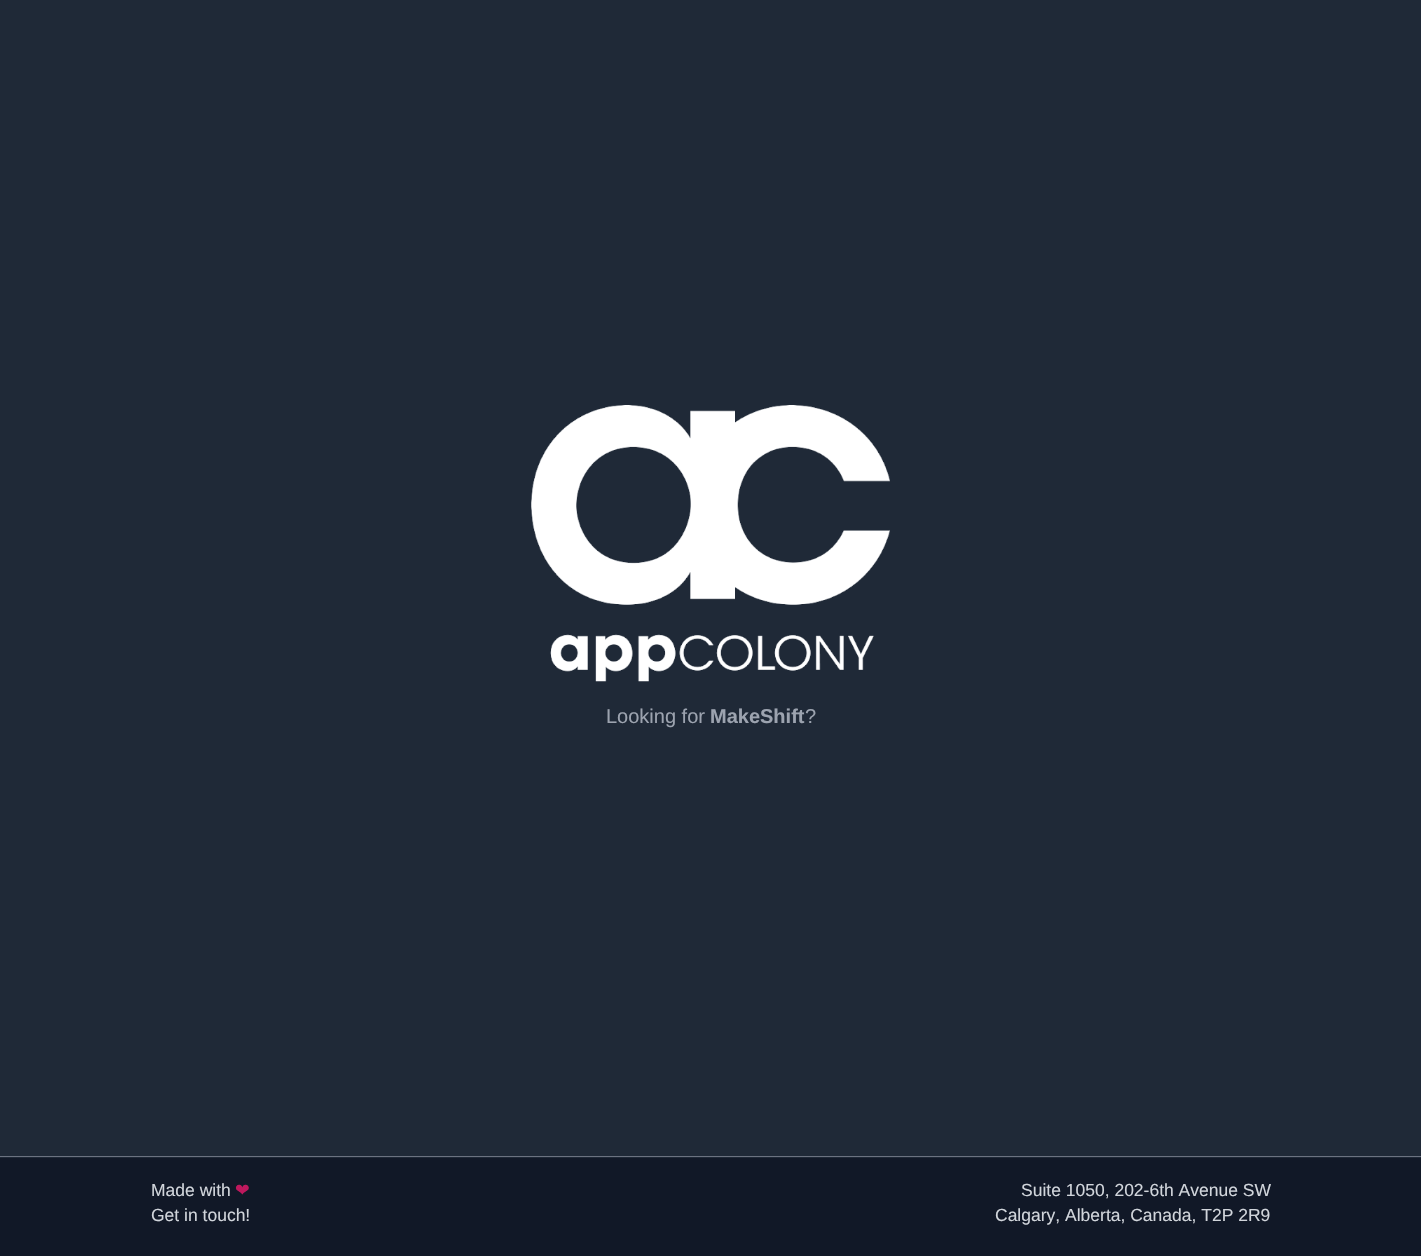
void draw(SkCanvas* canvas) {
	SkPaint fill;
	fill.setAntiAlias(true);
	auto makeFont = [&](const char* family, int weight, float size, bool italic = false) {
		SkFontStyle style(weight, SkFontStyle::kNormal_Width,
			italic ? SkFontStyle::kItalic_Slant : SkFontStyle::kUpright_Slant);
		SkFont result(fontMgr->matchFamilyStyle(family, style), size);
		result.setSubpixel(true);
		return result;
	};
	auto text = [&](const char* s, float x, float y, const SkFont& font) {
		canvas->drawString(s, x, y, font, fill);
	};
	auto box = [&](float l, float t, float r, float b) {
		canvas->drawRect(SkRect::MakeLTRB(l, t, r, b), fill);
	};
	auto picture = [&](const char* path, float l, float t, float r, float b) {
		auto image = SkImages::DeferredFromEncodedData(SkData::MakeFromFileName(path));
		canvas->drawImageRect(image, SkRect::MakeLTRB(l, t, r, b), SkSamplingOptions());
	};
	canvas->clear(0xFF1F2937);
	picture("image0.png", 531, 405, 890, 682);
	fill.setColor(0xFF111827);
	box(0, 1158, 1421, 1256);
	fill.setColor(0xFF6B7280);
	box(0, 1156, 1421, 1157);
	auto font1 = makeFont("Liberation Sans", 400, 20);
	fill.setColor(0xFF9CA3AF);
	text("Looking for", 606, 723, font1);
	auto font2 = makeFont("Liberation Sans", 700, 20);
	text("MakeShift", 710, 723, font2);
	text("?", 805, 723, font1);
	auto font3 = makeFont("Liberation Sans", 400, 17.5f);
	fill.setColor(0xFFD1D5DB);
	text("Made with", 151, 1196, font3);
	auto font4 = makeFont("DejaVu Sans", 400, 17.5f);
	fill.setColor(0xFFBE185D);
	text("❤", 235, 1196, font4);
	fill.setColor(0xFFD1D5DB);
	text("Get in touch!", 151, 1221, font3);
	text("Suite 1050, 202-6th Avenue SW", 1021, 1196, font3);
	text("Calgary, Alberta, Canada, T2P 2R9", 995, 1221, font3);
}
